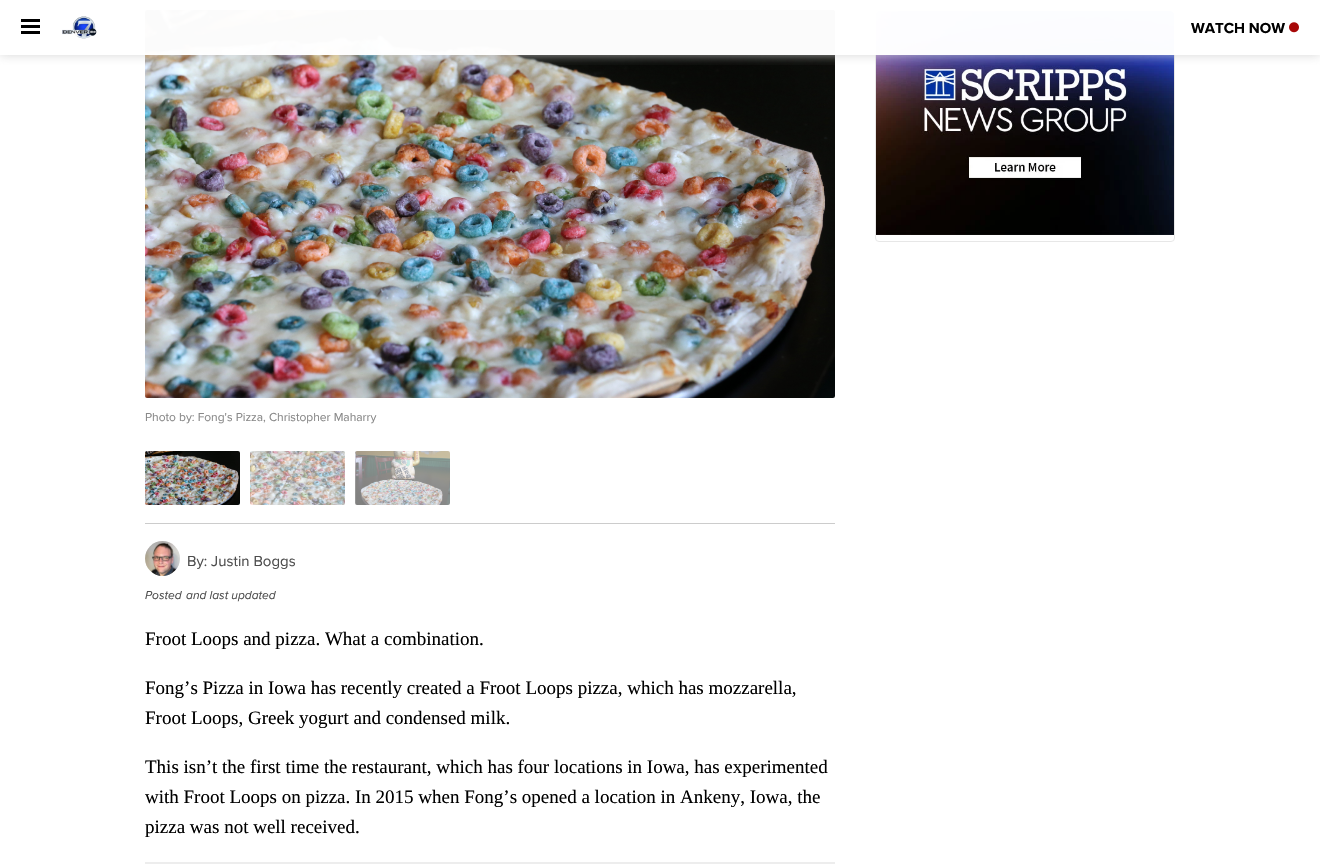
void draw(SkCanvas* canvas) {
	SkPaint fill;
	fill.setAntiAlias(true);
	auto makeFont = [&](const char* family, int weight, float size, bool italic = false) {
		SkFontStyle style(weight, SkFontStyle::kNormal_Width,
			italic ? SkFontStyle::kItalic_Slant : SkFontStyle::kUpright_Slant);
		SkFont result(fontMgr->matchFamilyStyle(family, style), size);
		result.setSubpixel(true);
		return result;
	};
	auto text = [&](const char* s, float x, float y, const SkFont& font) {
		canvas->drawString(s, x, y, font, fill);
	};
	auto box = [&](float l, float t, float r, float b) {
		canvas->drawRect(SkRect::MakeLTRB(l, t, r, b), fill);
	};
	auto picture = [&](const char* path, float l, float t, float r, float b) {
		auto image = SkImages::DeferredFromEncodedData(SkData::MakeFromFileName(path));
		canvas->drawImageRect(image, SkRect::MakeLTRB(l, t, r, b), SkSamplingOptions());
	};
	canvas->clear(0xFFFFFFFF);
	fill.setStyle(SkPaint::kStroke_Style);
	fill.setStrokeWidth(1);
	fill.setColor(0xFFE7E7E7);
	canvas->drawRoundRect(SkRect::MakeLTRB(875.5f, 10.5f, 1174.5f, 241.5f), 3.5f, 3.5f, fill);
	picture("image2.png", 876, 11, 1174, 235);
	picture("image3.png", 145, 10, 835, 398);
	canvas->save();
	canvas->clipRect(SkRect::MakeLTRB(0, 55, 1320, 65));
	fill.setStyle(SkPaint::kFill_Style);
	fill.setColor(0xCCCCCCCC);
	fill.setMaskFilter(SkMaskFilter::MakeBlur(kNormal_SkBlurStyle, 5));
	canvas->drawRect(SkRect::MakeLTRB(0, 0, 1320, 55), fill);
	fill.setMaskFilter(nullptr);
	canvas->restore();
	fill.setColor(0xFAFFFFFF);
	box(145, 10, 1175, 55);
	fill.setColor(0xFF000000);
	box(21, 19, 40, 22);
	box(21, 25, 40, 28);
	box(21, 31, 40, 34);
	picture("image0.png", 62, 16, 97, 39);
	picture("image1.png", 1289, 22, 1299, 33);
	fill.setColor(0xFFCCCCCC);
	box(145, 523, 835, 524);
	picture("image4.png", 145, 451, 240, 505);
	picture("image5.png", 250, 451, 345, 505);
	picture("image6.png", 355, 451, 450, 505);
	picture("image7.png", 145, 541, 180, 576);
	fill.setColor(0xFFEDEDED);
	box(145, 862, 835, 864);
	auto font1 = makeFont("Proxima Nova", 700, 15);
	fill.setColor(0xFF000000);
	text("WATCH NOW", 1191, 33, font1);
	auto font2 = makeFont("Proxima Nova", 400, 12);
	fill.setColor(0xFF888888);
	text("Photo by: Fong's Pizza, Christopher Maharry", 145, 421, font2);
	auto font3 = makeFont("Proxima Nova", 400, 15);
	fill.setColor(0xFF4D4D4D);
	text("By: Justin Boggs", 187, 566, font3);
	auto font4 = makeFont("Proxima Nova", 400, 12, true);
	text("Posted", 145, 599, font4);
	text("and last updated", 186, 599, font4);
	auto font5 = makeFont("Liberation Serif", 400, 19);
	fill.setColor(0xFF000000);
	text("Froot Loops and pizza. What a combination.", 145, 645, font5);
	text("Fong’s Pizza in Iowa has recently created a Froot Loops pizza, which has mozzarella,", 145, 694, font5);
	text("Froot Loops, Greek yogurt and condensed milk.", 145, 724, font5);
	text("This isn’t the first time the restaurant, which has four locations in Iowa, has experimented", 145, 773, font5);
	text("with Froot Loops on pizza. In 2015 when Fong’s opened a location in Ankeny, Iowa, the", 145, 803, font5);
	text("pizza was not well received.", 145, 833, font5);
}
